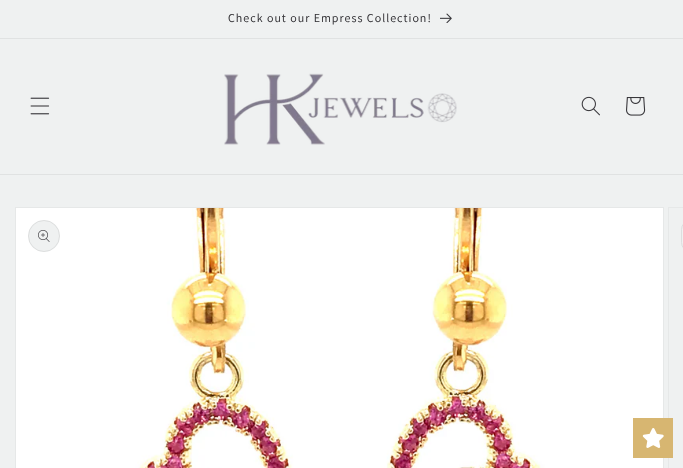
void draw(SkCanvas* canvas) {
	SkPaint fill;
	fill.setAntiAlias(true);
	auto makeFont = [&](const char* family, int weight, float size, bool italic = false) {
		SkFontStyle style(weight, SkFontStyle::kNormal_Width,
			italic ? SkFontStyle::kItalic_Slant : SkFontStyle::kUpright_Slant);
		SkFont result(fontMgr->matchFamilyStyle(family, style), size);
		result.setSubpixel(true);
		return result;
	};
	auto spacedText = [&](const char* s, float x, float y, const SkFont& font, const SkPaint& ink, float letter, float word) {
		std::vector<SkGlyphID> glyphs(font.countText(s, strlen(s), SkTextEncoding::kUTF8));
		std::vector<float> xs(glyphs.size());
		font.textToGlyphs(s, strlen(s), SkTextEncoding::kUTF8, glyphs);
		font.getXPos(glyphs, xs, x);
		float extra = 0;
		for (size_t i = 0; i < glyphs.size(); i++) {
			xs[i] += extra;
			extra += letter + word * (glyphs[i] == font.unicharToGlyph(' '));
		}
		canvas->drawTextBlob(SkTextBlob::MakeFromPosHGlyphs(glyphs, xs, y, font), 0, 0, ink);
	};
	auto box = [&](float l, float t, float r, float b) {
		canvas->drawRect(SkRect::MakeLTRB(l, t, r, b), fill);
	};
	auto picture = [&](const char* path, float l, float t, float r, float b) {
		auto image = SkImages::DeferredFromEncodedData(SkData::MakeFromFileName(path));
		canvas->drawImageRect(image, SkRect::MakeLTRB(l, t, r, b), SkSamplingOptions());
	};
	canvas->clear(0xFFEFF1F1);
	fill.setColor(0xFFE0E2E2);
	box(0, 38, 683, 39);
	picture("image0.png", 440, 13, 452, 23);
	box(0, 174, 683, 175);
	picture("image1.png", 30, 97, 50, 115);
	picture("image2.png", 224, 73, 457, 145);
	picture("image3.png", 581, 96, 600, 116);
	picture("image4.png", 626, 97, 646, 116);
	fill.setStyle(SkPaint::kStroke_Style);
	fill.setStrokeWidth(1);
	fill.setColor(0xFFE6E8E8);
	canvas->drawRect(SkRect::MakeLTRB(15.5f, 207.5f, 663.5f, 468.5f), fill);
	picture("image5.png", 16, 208, 663, 468);
	fill.setStyle(SkPaint::kFill_Style);
	fill.setColor(0xFFEFF1F1);
	canvas->drawCircle(44, 236, 16, fill);
	fill.setStyle(SkPaint::kStroke_Style);
	fill.setColor(0x1A38373B);
	canvas->drawCircle(44, 236, 15.5f, fill);
	picture("image6.png", 38, 230, 50, 242);
	fill.setColor(0xFFE6E8E8);
	canvas->drawRect(SkRect::MakeLTRB(668.5f, 207.5f, 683.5f, 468.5f), fill);
	fill.setColor(0xFFDDDEDF);
	canvas->drawRoundRect(SkRect::MakeLTRB(681.5f, 220.5f, 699.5f, 251.5f), 15.5f, 15.5f, fill);
	fill.setStyle(SkPaint::kFill_Style);
	fill.setColor(0xFFD7B671);
	box(633, 418, 673, 458);
	picture("image7.png", 642, 428, 664, 448);
	auto font1 = makeFont("Assistant", 400, 12);
	fill.setColor(0xFF38373B);
	spacedText("Check out our Empress Collection!", 228, 22, font1, fill, 1, 0);
}
